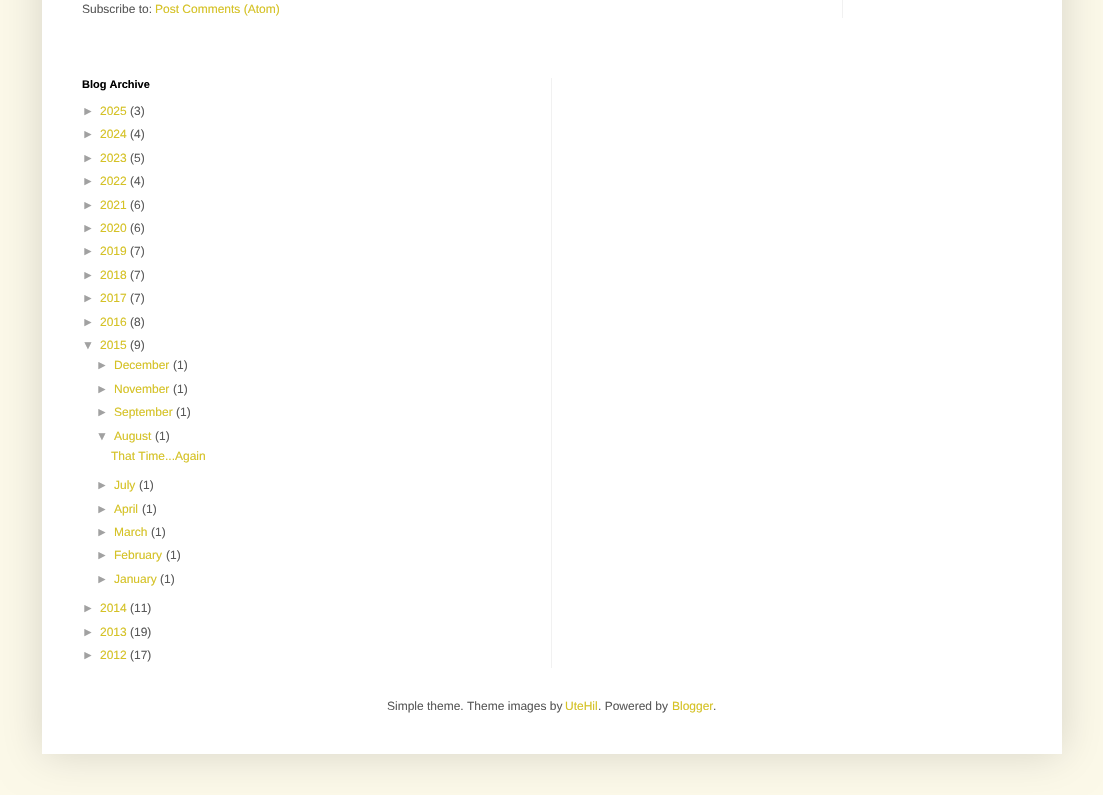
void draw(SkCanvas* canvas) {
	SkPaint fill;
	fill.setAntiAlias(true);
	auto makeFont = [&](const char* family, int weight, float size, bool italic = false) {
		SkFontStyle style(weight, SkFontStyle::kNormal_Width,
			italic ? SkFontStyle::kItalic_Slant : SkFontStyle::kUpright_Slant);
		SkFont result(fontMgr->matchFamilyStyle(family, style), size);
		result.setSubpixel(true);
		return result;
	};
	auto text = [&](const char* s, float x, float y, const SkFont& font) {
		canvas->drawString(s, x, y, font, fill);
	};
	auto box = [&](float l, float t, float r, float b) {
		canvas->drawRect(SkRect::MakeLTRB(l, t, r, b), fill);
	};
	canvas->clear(0xFFFCF9E9);
	fill.setColor(0x26000000);
	fill.setMaskFilter(SkMaskFilter::MakeBlur(kNormal_SkBlurStyle, 20));
	canvas->drawRect(SkRect::MakeLTRB(42, -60, 1062, 754), fill);
	fill.setMaskFilter(nullptr);
	fill.setColor(0xFFFFFFFF);
	box(42, 0, 1062, 754);
	fill.setColor(0xFFF1F1F1);
	box(842, 0, 843, 18);
	box(551, 78, 552, 668);
	auto font1 = makeFont("Liberation Sans", 400, 12);
	fill.setColor(0xFF595959);
	text("Subscribe to:", 82, 13, font1);
	fill.setColor(0xFFD5C226);
	text("Post Comments (Atom)", 155, 13, font1);
	auto font2 = makeFont("Liberation Sans", 700, 11);
	fill.setColor(0xFF000000);
	text("Blog Archive", 82, 88, font2);
	fill.setColor(0xFFA1A1A1);
	text("►", 82, 115, font1);
	fill.setColor(0xFFD5C226);
	text("2025", 100, 115, font1);
	fill.setColor(0xFF595959);
	text("(3)", 130, 115, font1);
	fill.setColor(0xFFA1A1A1);
	text("►", 82, 138, font1);
	fill.setColor(0xFFD5C226);
	text("2024", 100, 138, font1);
	fill.setColor(0xFF595959);
	text("(4)", 130, 138, font1);
	fill.setColor(0xFFA1A1A1);
	text("►", 82, 162, font1);
	fill.setColor(0xFFD5C226);
	text("2023", 100, 162, font1);
	fill.setColor(0xFF595959);
	text("(5)", 130, 162, font1);
	fill.setColor(0xFFA1A1A1);
	text("►", 82, 185, font1);
	fill.setColor(0xFFD5C226);
	text("2022", 100, 185, font1);
	fill.setColor(0xFF595959);
	text("(4)", 130, 185, font1);
	fill.setColor(0xFFA1A1A1);
	text("►", 82, 209, font1);
	fill.setColor(0xFFD5C226);
	text("2021", 100, 209, font1);
	fill.setColor(0xFF595959);
	text("(6)", 130, 209, font1);
	fill.setColor(0xFFA1A1A1);
	text("►", 82, 232, font1);
	fill.setColor(0xFFD5C226);
	text("2020", 100, 232, font1);
	fill.setColor(0xFF595959);
	text("(6)", 130, 232, font1);
	fill.setColor(0xFFA1A1A1);
	text("►", 82, 255, font1);
	fill.setColor(0xFFD5C226);
	text("2019", 100, 255, font1);
	fill.setColor(0xFF595959);
	text("(7)", 130, 255, font1);
	fill.setColor(0xFFA1A1A1);
	text("►", 82, 279, font1);
	fill.setColor(0xFFD5C226);
	text("2018", 100, 279, font1);
	fill.setColor(0xFF595959);
	text("(7)", 130, 279, font1);
	fill.setColor(0xFFA1A1A1);
	text("►", 82, 302, font1);
	fill.setColor(0xFFD5C226);
	text("2017", 100, 302, font1);
	fill.setColor(0xFF595959);
	text("(7)", 130, 302, font1);
	fill.setColor(0xFFA1A1A1);
	text("►", 82, 326, font1);
	fill.setColor(0xFFD5C226);
	text("2016", 100, 326, font1);
	fill.setColor(0xFF595959);
	text("(8)", 130, 326, font1);
	fill.setColor(0xFFA1A1A1);
	text("▼", 82, 349, font1);
	fill.setColor(0xFFD5C226);
	text("2015", 100, 349, font1);
	fill.setColor(0xFF595959);
	text("(9)", 130, 349, font1);
	fill.setColor(0xFFA1A1A1);
	text("►", 96, 369, font1);
	fill.setColor(0xFFD5C226);
	text("December", 114, 369, font1);
	fill.setColor(0xFF595959);
	text("(1)", 173, 369, font1);
	fill.setColor(0xFFA1A1A1);
	text("►", 96, 393, font1);
	fill.setColor(0xFFD5C226);
	text("November", 114, 393, font1);
	fill.setColor(0xFF595959);
	text("(1)", 173, 393, font1);
	fill.setColor(0xFFA1A1A1);
	text("►", 96, 416, font1);
	fill.setColor(0xFFD5C226);
	text("September", 114, 416, font1);
	fill.setColor(0xFF595959);
	text("(1)", 176, 416, font1);
	fill.setColor(0xFFA1A1A1);
	text("▼", 96, 440, font1);
	fill.setColor(0xFFD5C226);
	text("August", 114, 440, font1);
	fill.setColor(0xFF595959);
	text("(1)", 155, 440, font1);
	fill.setColor(0xFFD5C226);
	text("That Time...Again", 111, 460, font1);
	fill.setColor(0xFFA1A1A1);
	text("►", 96, 489, font1);
	fill.setColor(0xFFD5C226);
	text("July", 114, 489, font1);
	fill.setColor(0xFF595959);
	text("(1)", 139, 489, font1);
	fill.setColor(0xFFA1A1A1);
	text("►", 96, 513, font1);
	fill.setColor(0xFFD5C226);
	text("April", 114, 513, font1);
	fill.setColor(0xFF595959);
	text("(1)", 142, 513, font1);
	fill.setColor(0xFFA1A1A1);
	text("►", 96, 536, font1);
	fill.setColor(0xFFD5C226);
	text("March", 114, 536, font1);
	fill.setColor(0xFF595959);
	text("(1)", 151, 536, font1);
	fill.setColor(0xFFA1A1A1);
	text("►", 96, 559, font1);
	fill.setColor(0xFFD5C226);
	text("February", 114, 559, font1);
	fill.setColor(0xFF595959);
	text("(1)", 166, 559, font1);
	fill.setColor(0xFFA1A1A1);
	text("►", 96, 583, font1);
	fill.setColor(0xFFD5C226);
	text("January", 114, 583, font1);
	fill.setColor(0xFF595959);
	text("(1)", 160, 583, font1);
	fill.setColor(0xFFA1A1A1);
	text("►", 82, 612, font1);
	fill.setColor(0xFFD5C226);
	text("2014", 100, 612, font1);
	fill.setColor(0xFF595959);
	text("(11)", 130, 612, font1);
	fill.setColor(0xFFA1A1A1);
	text("►", 82, 636, font1);
	fill.setColor(0xFFD5C226);
	text("2013", 100, 636, font1);
	fill.setColor(0xFF595959);
	text("(19)", 130, 636, font1);
	fill.setColor(0xFFA1A1A1);
	text("►", 82, 659, font1);
	fill.setColor(0xFFD5C226);
	text("2012", 100, 659, font1);
	fill.setColor(0xFF595959);
	text("(17)", 130, 659, font1);
	text("Simple theme. Theme images by", 387, 710, font1);
	fill.setColor(0xFFD5C226);
	text("UteHil", 565, 710, font1);
	fill.setColor(0xFF595959);
	text(". Powered by", 598, 710, font1);
	fill.setColor(0xFFD5C226);
	text("Blogger", 672, 710, font1);
	fill.setColor(0xFF595959);
	text(".", 713, 710, font1);
}
